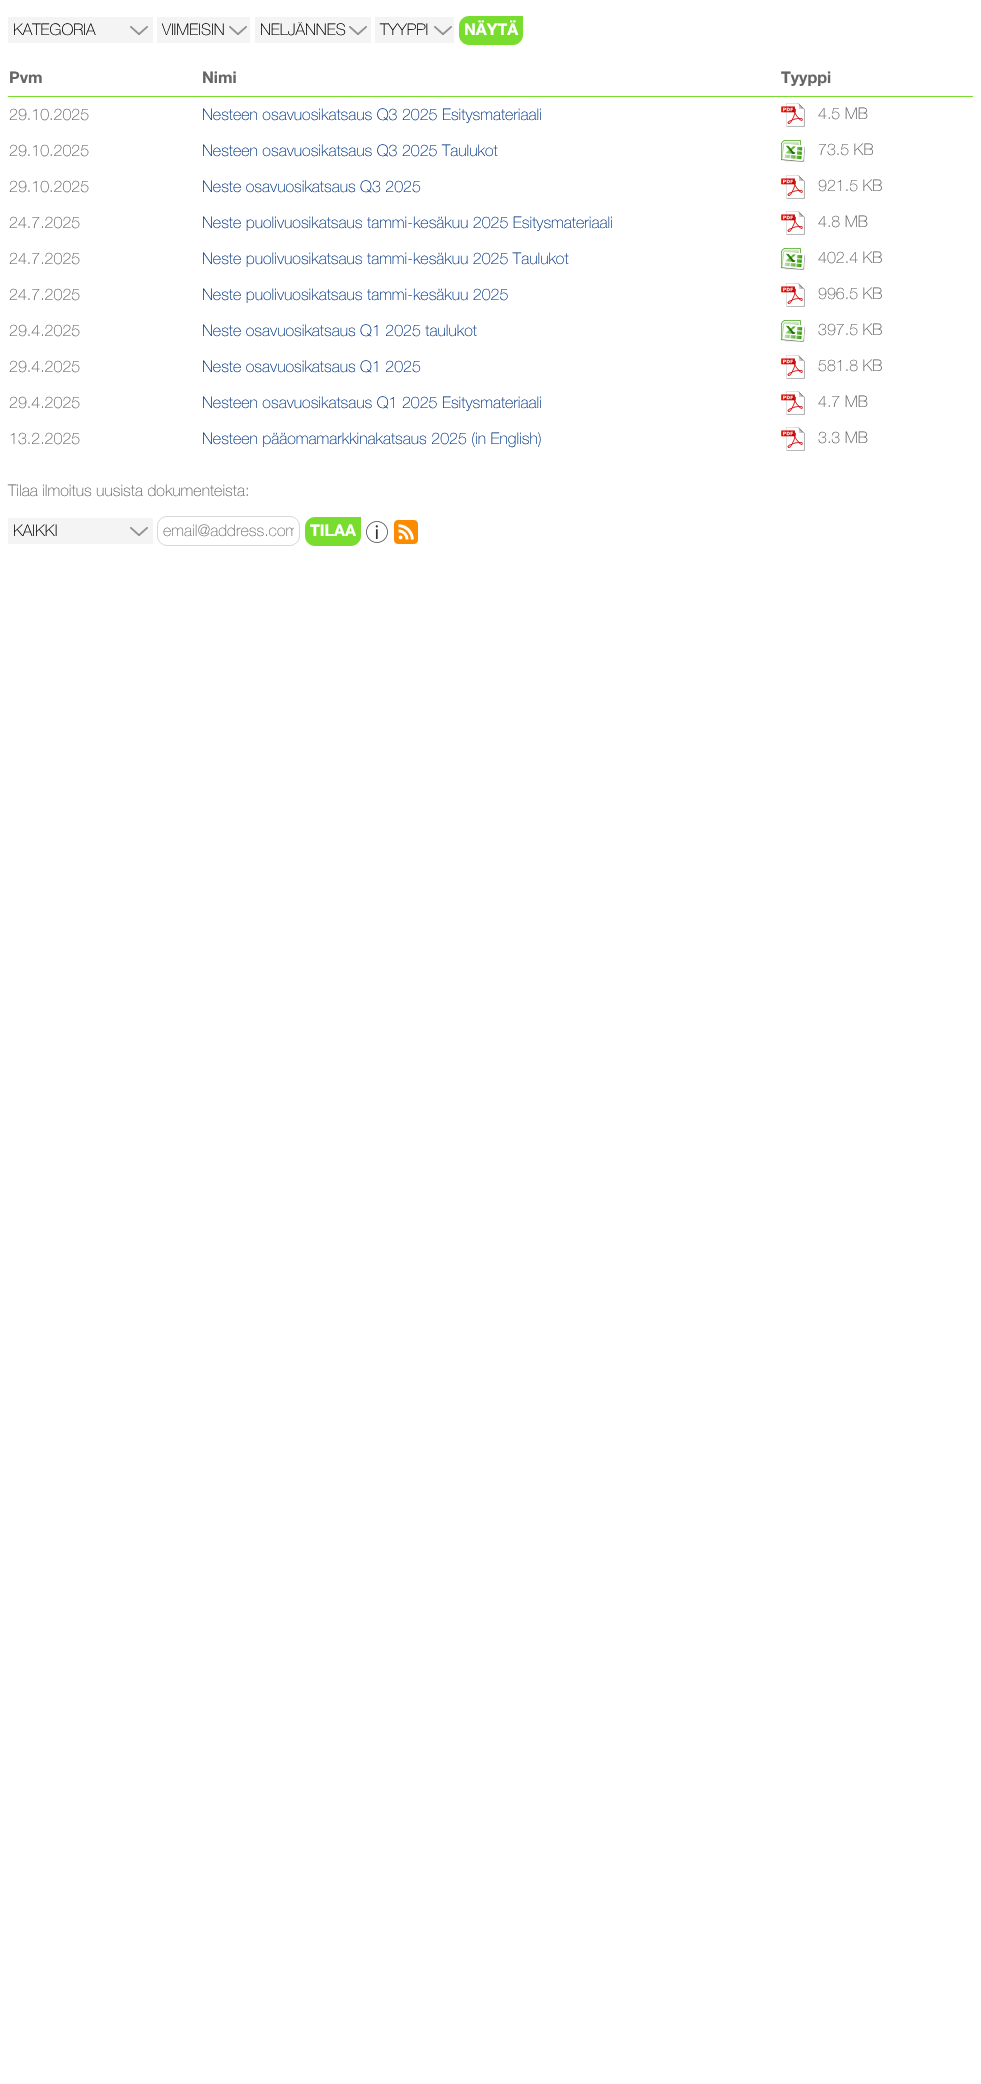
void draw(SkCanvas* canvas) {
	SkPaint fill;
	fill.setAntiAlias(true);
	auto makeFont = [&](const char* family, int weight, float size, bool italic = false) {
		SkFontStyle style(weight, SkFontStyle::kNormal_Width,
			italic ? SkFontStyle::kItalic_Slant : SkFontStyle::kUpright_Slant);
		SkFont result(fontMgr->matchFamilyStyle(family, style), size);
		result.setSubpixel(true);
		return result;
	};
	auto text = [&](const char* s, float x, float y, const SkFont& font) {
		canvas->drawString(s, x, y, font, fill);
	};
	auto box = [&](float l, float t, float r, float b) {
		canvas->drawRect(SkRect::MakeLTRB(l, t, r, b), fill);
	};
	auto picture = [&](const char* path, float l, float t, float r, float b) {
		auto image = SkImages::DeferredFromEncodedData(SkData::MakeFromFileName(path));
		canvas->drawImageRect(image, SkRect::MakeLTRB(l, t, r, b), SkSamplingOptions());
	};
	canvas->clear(0xFFFFFFFF);
	fill.setColor(0xFFF4F4F4);
	box(8, 17, 153, 43);
	picture("image0.png", 130, 26, 148, 35);
	box(157, 17, 250, 43);
	picture("image0.png", 229, 26, 247, 35);
	box(255, 17, 371, 43);
	picture("image0.png", 349, 26, 367, 35);
	box(375, 17, 454, 43);
	picture("image0.png", 434, 26, 452, 35);
	fill.setColor(0xFF78DD2E);
	canvas->drawPath(SkPathBuilder().moveTo(469, 16).lineTo(523, 16).lineTo(523, 35).cubicTo(523, 40.5f, 518.5f, 45, 513, 45).lineTo(469, 45).cubicTo(463.5f, 45, 459, 40.5f, 459, 35).lineTo(459, 26).cubicTo(459, 20.5f, 463.5f, 16, 469, 16).close().detach(), fill);
	box(8, 96, 973, 97);
	picture("image1.png", 781, 103, 805, 127);
	picture("image2.png", 781, 140, 805, 162);
	picture("image1.png", 781, 175, 805, 199);
	picture("image1.png", 781, 211, 805, 235);
	picture("image2.png", 781, 248, 805, 270);
	picture("image1.png", 781, 283, 805, 307);
	picture("image2.png", 781, 320, 805, 342);
	picture("image1.png", 781, 355, 805, 379);
	picture("image1.png", 781, 391, 805, 415);
	picture("image1.png", 781, 427, 805, 451);
	fill.setColor(0xFFF4F4F4);
	box(8, 518, 153, 544);
	picture("image0.png", 130, 527, 148, 536);
	fill.setStyle(SkPaint::kStroke_Style);
	fill.setStrokeWidth(1);
	fill.setColor(0xFFD7D7D7);
	canvas->drawRoundRect(SkRect::MakeLTRB(157.5f, 516.5f, 299.5f, 545.5f), 9.5f, 9.5f, fill);
	fill.setStyle(SkPaint::kFill_Style);
	fill.setColor(0xFF78DD2E);
	canvas->drawPath(SkPathBuilder().moveTo(315, 517).lineTo(361, 517).lineTo(361, 536).cubicTo(361, 541.5f, 356.5f, 546, 351, 546).lineTo(315, 546).cubicTo(309.5f, 546, 305, 541.5f, 305, 536).lineTo(305, 527).cubicTo(305, 521.5f, 309.5f, 517, 315, 517).close().detach(), fill);
	picture("image3.png", 366, 521, 388, 543);
	picture("image4.png", 394, 520, 418, 544);
	auto font1 = makeFont("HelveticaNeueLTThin", 100, 16);
	fill.setColor(0xFF000000);
	text("KATEGORIA", 13, 35, font1);
	text("VIIMEISIN", 162, 35, font1);
	canvas->save();
	canvas->clipRect(SkRect::MakeLTRB(260, 22, 346, 38));
	text("NELJÄNNES", 260, 35, font1);
	canvas->restore();
	text("TYYPPI", 380, 35, font1);
	auto font2 = makeFont("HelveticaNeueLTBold", 700, 16);
	fill.setColor(0xFFFFFFFF);
	text("NÄYTÄ", 464, 35, font2);
	fill.setColor(0xFF666666);
	text("Pvm", 9, 83, font2);
	text("Nimi", 202, 83, font2);
	text("Tyyppi", 781, 83, font2);
	text("29.10.2025", 9, 120, font1);
	fill.setColor(0xFF073C87);
	text("Nesteen osavuosikatsaus Q3 2025 Esitysmateriaali", 202, 120, font1);
	fill.setColor(0xFF666666);
	text("4.5 MB", 818, 119, font1);
	text("29.10.2025", 9, 156, font1);
	fill.setColor(0xFF073C87);
	text("Nesteen osavuosikatsaus Q3 2025 Taulukot", 202, 156, font1);
	fill.setColor(0xFF666666);
	text("73.5 KB", 818, 155, font1);
	text("29.10.2025", 9, 192, font1);
	fill.setColor(0xFF073C87);
	text("Neste osavuosikatsaus Q3 2025", 202, 192, font1);
	fill.setColor(0xFF666666);
	text("921.5 KB", 818, 191, font1);
	text("24.7.2025", 9, 228, font1);
	fill.setColor(0xFF073C87);
	text("Neste puolivuosikatsaus tammi-kesäkuu 2025 Esitysmateriaali", 202, 228, font1);
	fill.setColor(0xFF666666);
	text("4.8 MB", 818, 227, font1);
	text("24.7.2025", 9, 264, font1);
	fill.setColor(0xFF073C87);
	text("Neste puolivuosikatsaus tammi-kesäkuu 2025 Taulukot", 202, 264, font1);
	fill.setColor(0xFF666666);
	text("402.4 KB", 818, 263, font1);
	text("24.7.2025", 9, 300, font1);
	fill.setColor(0xFF073C87);
	text("Neste puolivuosikatsaus tammi-kesäkuu 2025", 202, 300, font1);
	fill.setColor(0xFF666666);
	text("996.5 KB", 818, 299, font1);
	text("29.4.2025", 9, 336, font1);
	fill.setColor(0xFF073C87);
	text("Neste osavuosikatsaus Q1 2025 taulukot", 202, 336, font1);
	fill.setColor(0xFF666666);
	text("397.5 KB", 818, 335, font1);
	text("29.4.2025", 9, 372, font1);
	fill.setColor(0xFF073C87);
	text("Neste osavuosikatsaus Q1 2025", 202, 372, font1);
	fill.setColor(0xFF666666);
	text("581.8 KB", 818, 371, font1);
	text("29.4.2025", 9, 408, font1);
	fill.setColor(0xFF073C87);
	text("Nesteen osavuosikatsaus Q1 2025 Esitysmateriaali", 202, 408, font1);
	fill.setColor(0xFF666666);
	text("4.7 MB", 818, 407, font1);
	text("13.2.2025", 9, 444, font1);
	fill.setColor(0xFF073C87);
	text("Nesteen pääomamarkkinakatsaus 2025 (in English)", 202, 444, font1);
	fill.setColor(0xFF666666);
	text("3.3 MB", 818, 443, font1);
	text("Tilaa ilmoitus uusista dokumenteista:", 8, 496, font1);
	fill.setColor(0xFF000000);
	text("KAIKKI", 13, 536, font1);
	canvas->save();
	canvas->clipRect(SkRect::MakeLTRB(163, 522, 294, 540));
	fill.setColor(0xFF757575);
	text("email@address.com", 163, 536, font1);
	canvas->restore();
	fill.setColor(0xFFFFFFFF);
	text("TILAA", 310, 536, font2);
}
